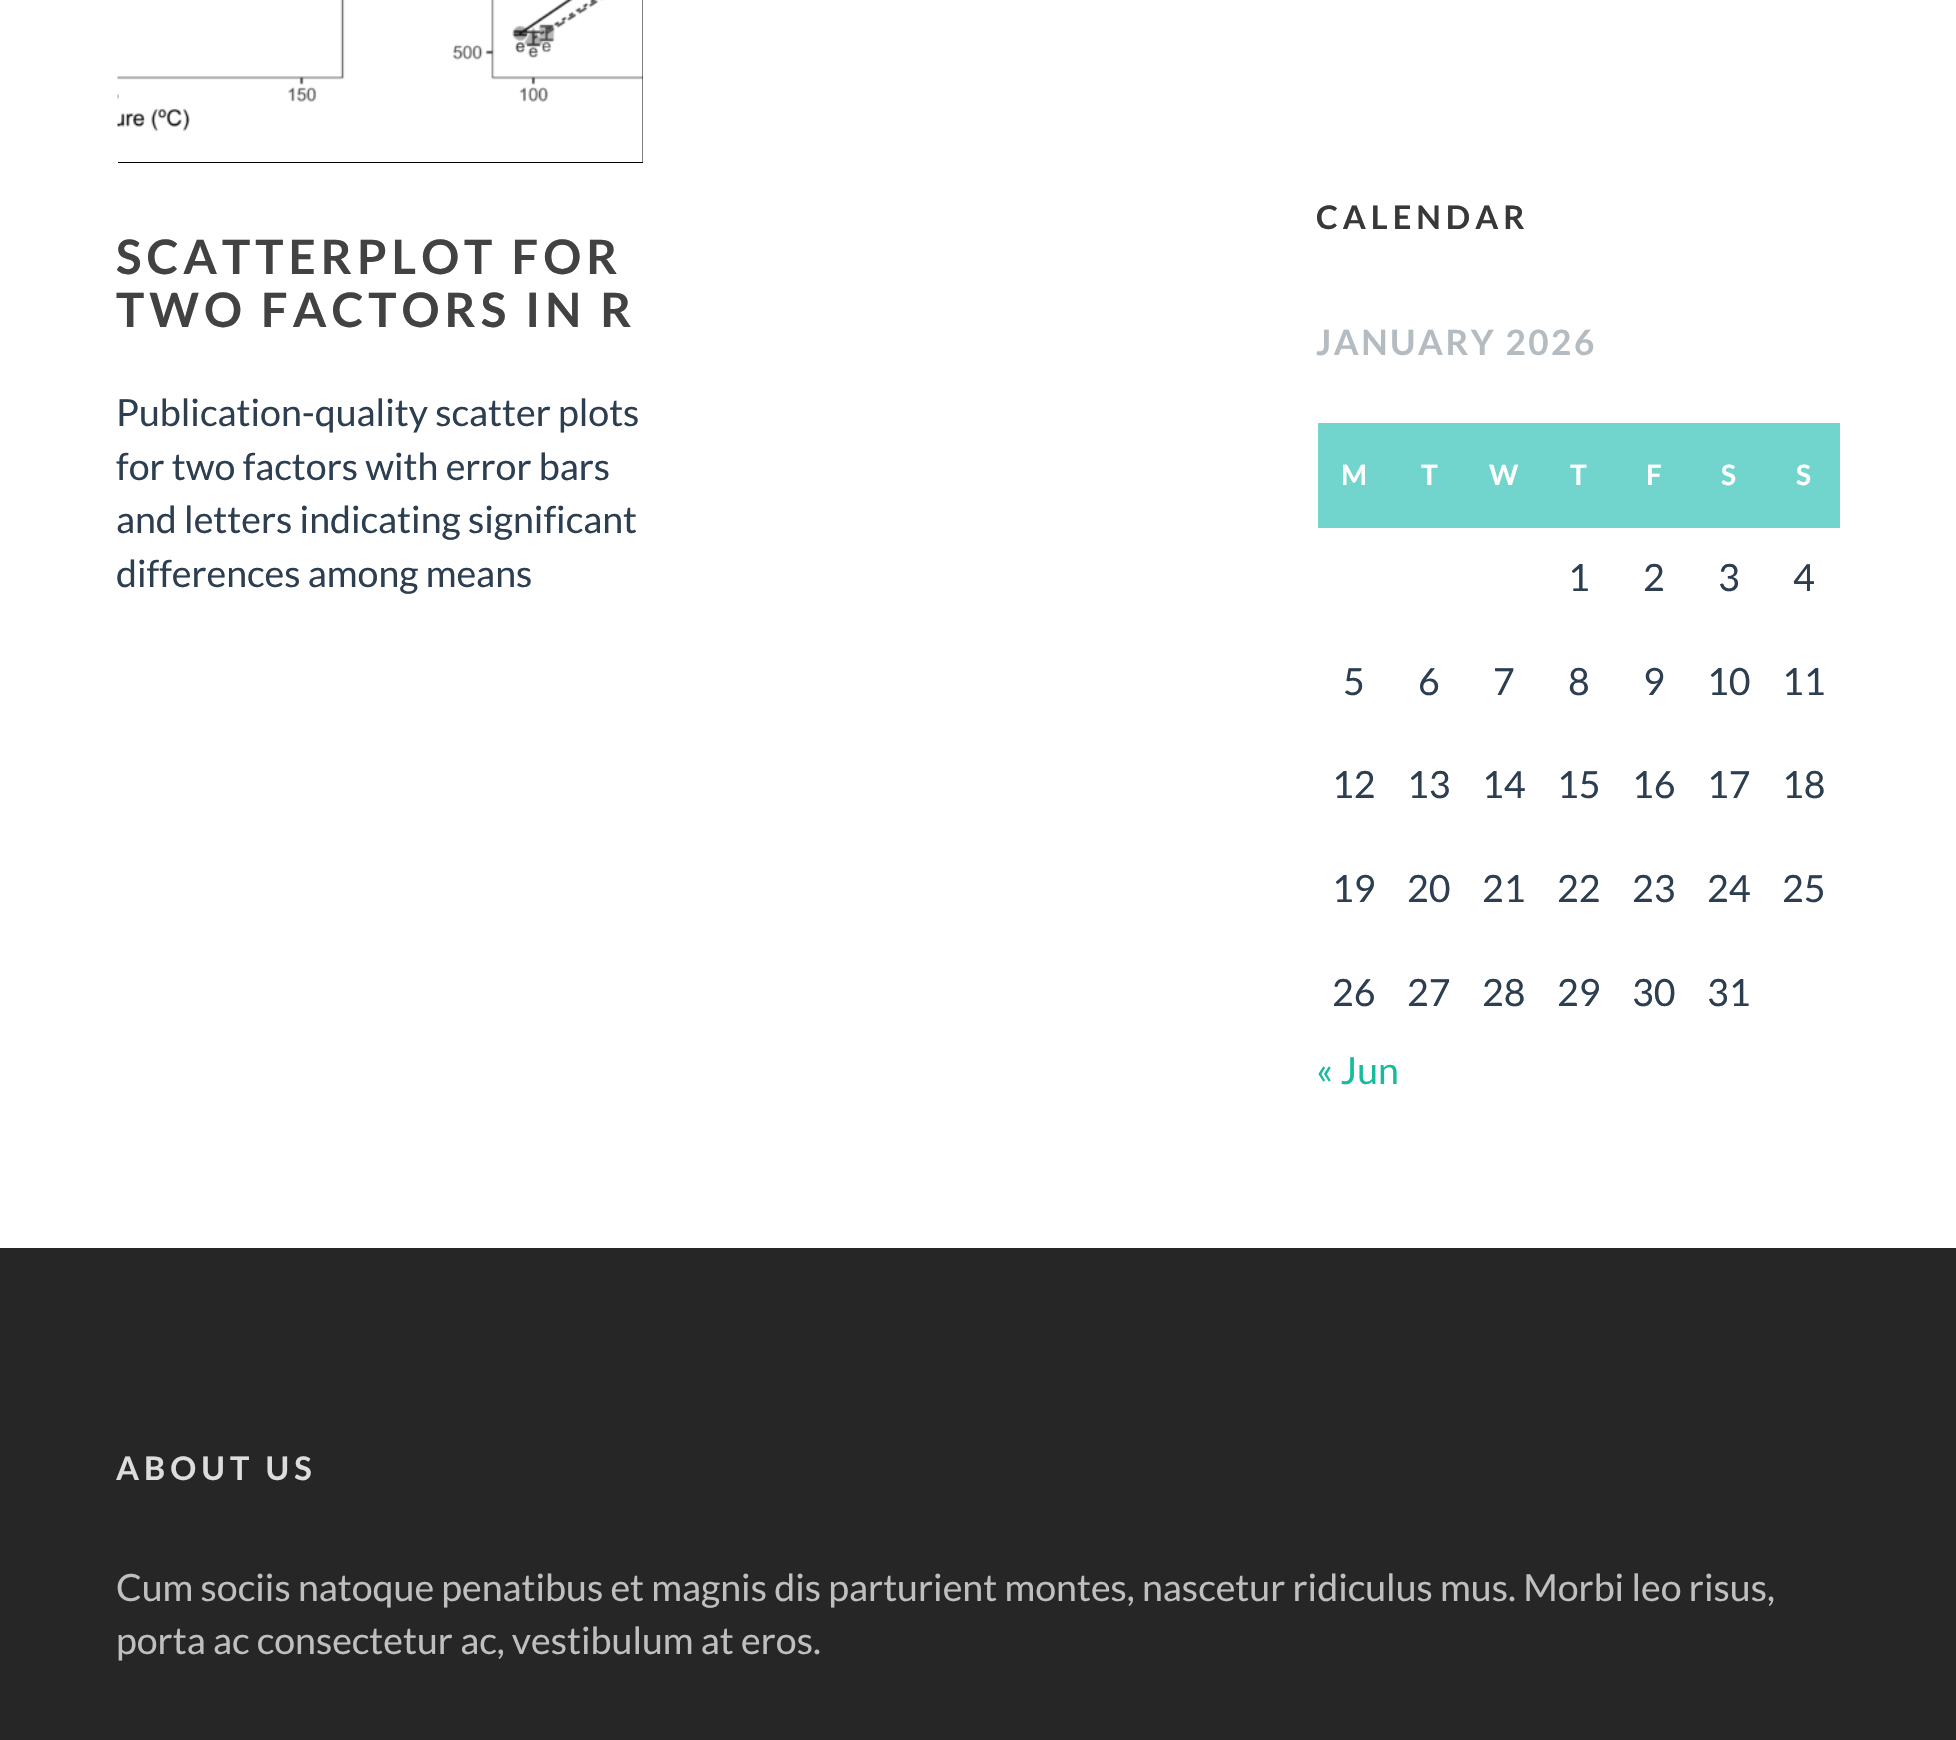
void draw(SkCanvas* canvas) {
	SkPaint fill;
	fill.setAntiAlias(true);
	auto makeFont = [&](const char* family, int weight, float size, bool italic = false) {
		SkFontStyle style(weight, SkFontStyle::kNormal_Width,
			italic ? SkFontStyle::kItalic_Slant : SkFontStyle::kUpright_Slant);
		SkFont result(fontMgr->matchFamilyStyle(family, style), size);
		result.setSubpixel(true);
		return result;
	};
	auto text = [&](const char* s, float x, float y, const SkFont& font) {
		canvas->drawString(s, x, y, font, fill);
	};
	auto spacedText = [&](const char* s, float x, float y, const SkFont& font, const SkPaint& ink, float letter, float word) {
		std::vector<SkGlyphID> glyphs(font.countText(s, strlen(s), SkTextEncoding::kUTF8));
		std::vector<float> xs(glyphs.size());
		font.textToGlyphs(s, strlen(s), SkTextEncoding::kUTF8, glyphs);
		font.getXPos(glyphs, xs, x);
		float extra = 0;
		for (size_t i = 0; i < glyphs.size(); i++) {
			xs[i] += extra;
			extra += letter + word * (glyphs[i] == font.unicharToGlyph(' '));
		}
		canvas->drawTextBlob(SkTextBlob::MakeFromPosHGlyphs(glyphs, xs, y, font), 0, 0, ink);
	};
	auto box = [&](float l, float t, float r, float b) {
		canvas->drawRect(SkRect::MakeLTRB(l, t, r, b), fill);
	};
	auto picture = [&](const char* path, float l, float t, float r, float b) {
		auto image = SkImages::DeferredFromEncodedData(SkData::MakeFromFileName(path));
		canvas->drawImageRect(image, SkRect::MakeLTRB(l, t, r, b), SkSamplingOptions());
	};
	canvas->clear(0xFFFFFFFF);
	fill.setColor(0xFF000000);
	box(118, 0, 643, 163);
	picture("image0.png", 117, 0, 643, 162);
	fill.setColor(0xFF72D5CD);
	box(1318, 423, 1840, 528);
	fill.setColor(0xFF262626);
	box(0, 1248, 1956, 1740);
	auto font1 = makeFont("Lato", 700, 47.5f);
	fill.setColor(0xFF424242);
	spacedText("SCATTERPLOT FOR", 116, 274, font1, fill, 5, 0);
	spacedText("TWO FACTORS IN R", 116, 327, font1, fill, 5, 0);
	auto font2 = makeFont("Lato", 400, 37.5f);
	fill.setColor(0xFF2C3E50);
	text("Publication-quality scatter plots", 116, 426, font2);
	text("for two factors with error bars", 116, 480, font2);
	text("and letters indicating significant", 116, 533, font2);
	text("differences among means", 116, 587, font2);
	auto font3 = makeFont("Lato", 700, 32.5f);
	fill.setColor(0xFF383838);
	spacedText("CALENDAR", 1316, 229, font3, fill, 5, 0);
	auto font4 = makeFont("Lato", 700, 35);
	fill.setColor(0xFFB4BCC2);
	spacedText("JANUARY 2026", 1316, 355, font4, fill, 2.5f, 0);
	auto font5 = makeFont("Lato", 700, 28);
	fill.setColor(0xFFFFFFFF);
	text("M", 1341, 485, font5);
	text("T", 1421, 485, font5);
	text("W", 1489, 485, font5);
	text("T", 1570, 485, font5);
	text("F", 1646, 485, font5);
	text("S", 1721, 485, font5);
	text("S", 1796, 485, font5);
	fill.setColor(0xFF2C3E50);
	text("1", 1568, 591, font2);
	text("2", 1643, 591, font2);
	text("3", 1718, 591, font2);
	text("4", 1793, 591, font2);
	text("5", 1343, 695, font2);
	text("6", 1418, 695, font2);
	text("7", 1493, 695, font2);
	text("8", 1568, 695, font2);
	text("9", 1643, 695, font2);
	text("10", 1707, 695, font2);
	text("11", 1782, 695, font2);
	text("12", 1332, 798, font2);
	text("13", 1407, 798, font2);
	text("14", 1482, 798, font2);
	text("15", 1557, 798, font2);
	text("16", 1632, 798, font2);
	text("17", 1707, 798, font2);
	text("18", 1782, 798, font2);
	text("19", 1332, 902, font2);
	text("20", 1407, 902, font2);
	text("21", 1482, 902, font2);
	text("22", 1557, 902, font2);
	text("23", 1632, 902, font2);
	text("24", 1707, 902, font2);
	text("25", 1782, 902, font2);
	text("26", 1332, 1006, font2);
	text("27", 1407, 1006, font2);
	text("28", 1482, 1006, font2);
	text("29", 1557, 1006, font2);
	text("30", 1632, 1006, font2);
	text("31", 1707, 1006, font2);
	fill.setColor(0xFF18BC9C);
	text("« Jun", 1316, 1084, font2);
	fill.setColor(0xFFDDDDDD);
	spacedText("ABOUT US", 116, 1480, font3, fill, 5, 0);
	fill.setColor(0xFFBFBFBF);
	text("Cum sociis natoque penatibus et magnis dis parturient montes, nascetur ridiculus mus. Morbi leo risus,", 116, 1601, font2);
	text("porta ac consectetur ac, vestibulum at eros.", 116, 1654, font2);
}
